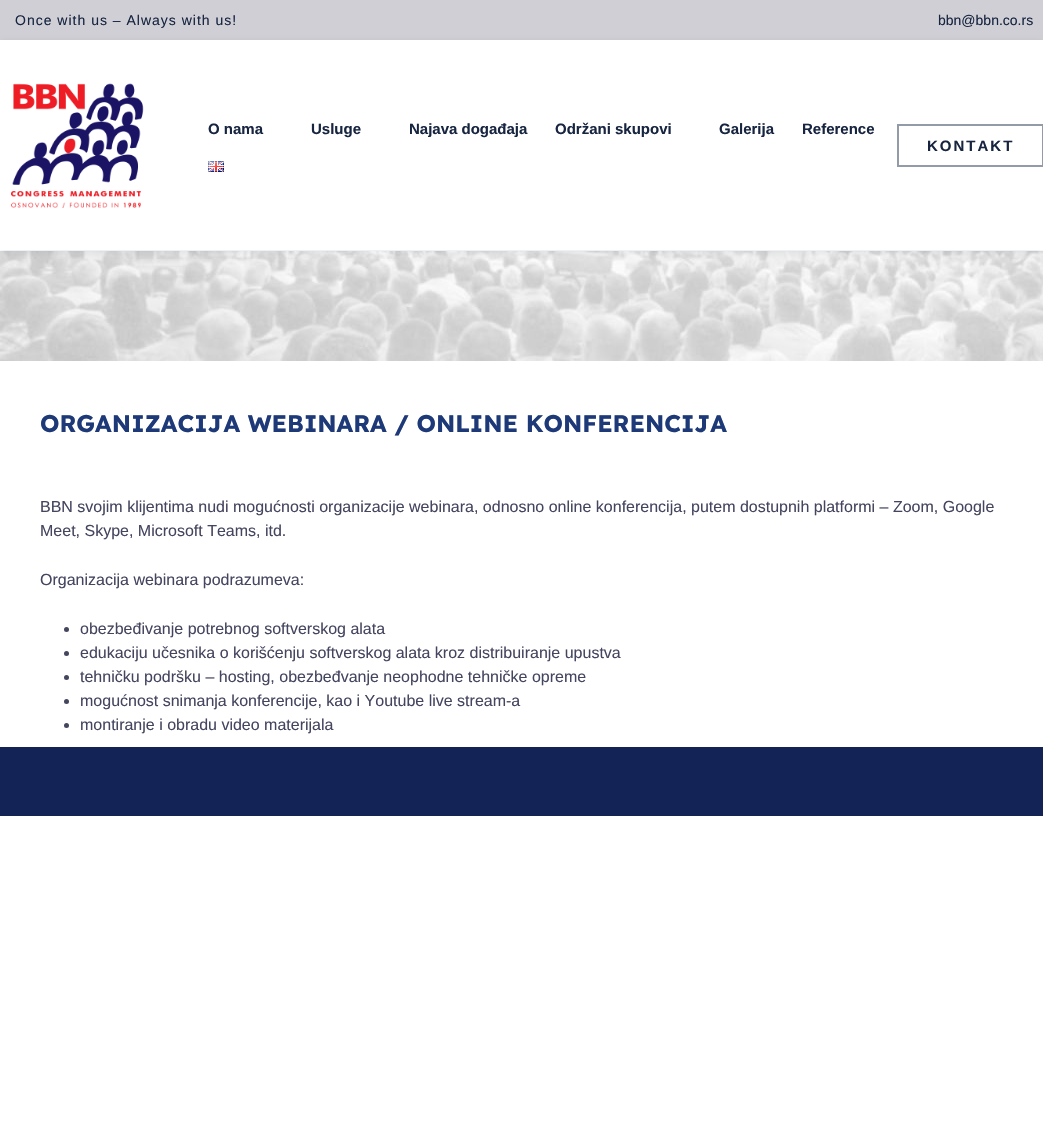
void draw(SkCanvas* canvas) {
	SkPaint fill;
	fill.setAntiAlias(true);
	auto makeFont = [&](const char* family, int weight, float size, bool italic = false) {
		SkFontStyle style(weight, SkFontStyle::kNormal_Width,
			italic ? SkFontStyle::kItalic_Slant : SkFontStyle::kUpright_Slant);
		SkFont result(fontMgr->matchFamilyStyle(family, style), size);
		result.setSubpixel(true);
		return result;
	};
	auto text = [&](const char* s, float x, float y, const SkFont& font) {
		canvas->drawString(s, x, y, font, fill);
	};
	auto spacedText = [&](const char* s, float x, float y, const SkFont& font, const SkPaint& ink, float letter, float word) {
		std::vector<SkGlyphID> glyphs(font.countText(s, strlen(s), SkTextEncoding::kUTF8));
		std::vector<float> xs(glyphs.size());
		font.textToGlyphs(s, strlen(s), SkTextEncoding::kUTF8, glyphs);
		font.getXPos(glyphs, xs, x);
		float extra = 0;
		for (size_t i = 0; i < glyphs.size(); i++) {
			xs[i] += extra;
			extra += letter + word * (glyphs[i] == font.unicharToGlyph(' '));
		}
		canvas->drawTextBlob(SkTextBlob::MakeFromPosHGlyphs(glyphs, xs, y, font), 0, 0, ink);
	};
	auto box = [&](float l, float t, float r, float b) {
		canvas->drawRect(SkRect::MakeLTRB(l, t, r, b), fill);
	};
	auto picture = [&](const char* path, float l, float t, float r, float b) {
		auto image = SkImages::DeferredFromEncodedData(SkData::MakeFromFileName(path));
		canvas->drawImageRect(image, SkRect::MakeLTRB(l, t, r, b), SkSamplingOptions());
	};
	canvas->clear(0xFFFFFFFF);
	fill.setColor(0xFFD0CFD5);
	box(0, 0, 1043, 40);
	picture("image2.png", 0, 251, 1043, 361);
	fill.setColor(0x1A07193C);
	fill.setMaskFilter(SkMaskFilter::MakeBlur(kNormal_SkBlurStyle, 4));
	canvas->drawRect(SkRect::MakeLTRB(0, 42, 1043, 252), fill);
	fill.setMaskFilter(nullptr);
	fill.setColor(0xFFFFFFFF);
	box(0, 40, 1043, 250);
	picture("image0.png", 11, 83, 144, 208);
	picture("image1.png", 208, 161, 224, 172);
	fill.setStyle(SkPaint::kStroke_Style);
	fill.setStrokeWidth(2);
	fill.setColor(0xFF949BA8);
	canvas->drawRect(SkRect::MakeLTRB(898, 125, 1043, 166), fill);
	fill.setStyle(SkPaint::kFill_Style);
	fill.setColor(0xFF44455F);
	canvas->drawCircle(66.5f, 629.5f, 2.5f, fill);
	canvas->drawCircle(66.5f, 653.5f, 2.5f, fill);
	canvas->drawCircle(66.5f, 677.5f, 2.5f, fill);
	canvas->drawCircle(66.5f, 701.5f, 2.5f, fill);
	canvas->drawCircle(66.5f, 725.5f, 2.5f, fill);
	fill.setColor(0xFF142355);
	box(0, 747, 1043, 816);
	auto font1 = makeFont("Liberation Sans", 400, 14);
	fill.setColor(0xFF172541);
	spacedText("Once with us – Always with us!", 15, 25, font1, fill, 1, 0);
	text("bbn@bbn.co.rs", 938, 25, font1);
	auto font2 = makeFont("Liberation Sans", 700, 15);
	text("O nama", 208, 134, font2);
	text("Usluge", 311, 134, font2);
	text("Najava događaja", 409, 134, font2);
	text("Održani skupovi", 555, 134, font2);
	text("Galerija", 719, 134, font2);
	text("Reference", 802, 134, font2);
	spacedText("KONTAKT", 927, 151, font2, fill, 2, 0);
	auto font3 = makeFont("Lexend", 700, 24);
	fill.setColor(0xFF1D3977);
	text("ORGANIZACIJA WEBINARA / ONLINE KONFERENCIJA", 40, 432, font3);
	auto font4 = makeFont("Liberation Sans", 400, 16);
	fill.setColor(0xFF44455F);
	text("BBN svojim klijentima nudi mogućnosti organizacije webinara, odnosno online konferencija, putem dostupnih platformi – Zoom, Google", 40, 512, font4);
	text("Meet, Skype, Microsoft Teams, itd.", 40, 536, font4);
	text("Organizacija webinara podrazumeva:", 40, 585, font4);
	text("obezbeđivanje potrebnog softverskog alata", 80, 634, font4);
	text("edukaciju učesnika o korišćenju softverskog alata kroz distribuiranje upustva", 80, 658, font4);
	text("tehničku podršku – hosting, obezbeđvanje neophodne tehničke opreme", 80, 682, font4);
	text("mogućnost snimanja konferencije, kao i Youtube live stream-a", 80, 706, font4);
	text("montiranje i obradu video materijala", 80, 730, font4);
}
